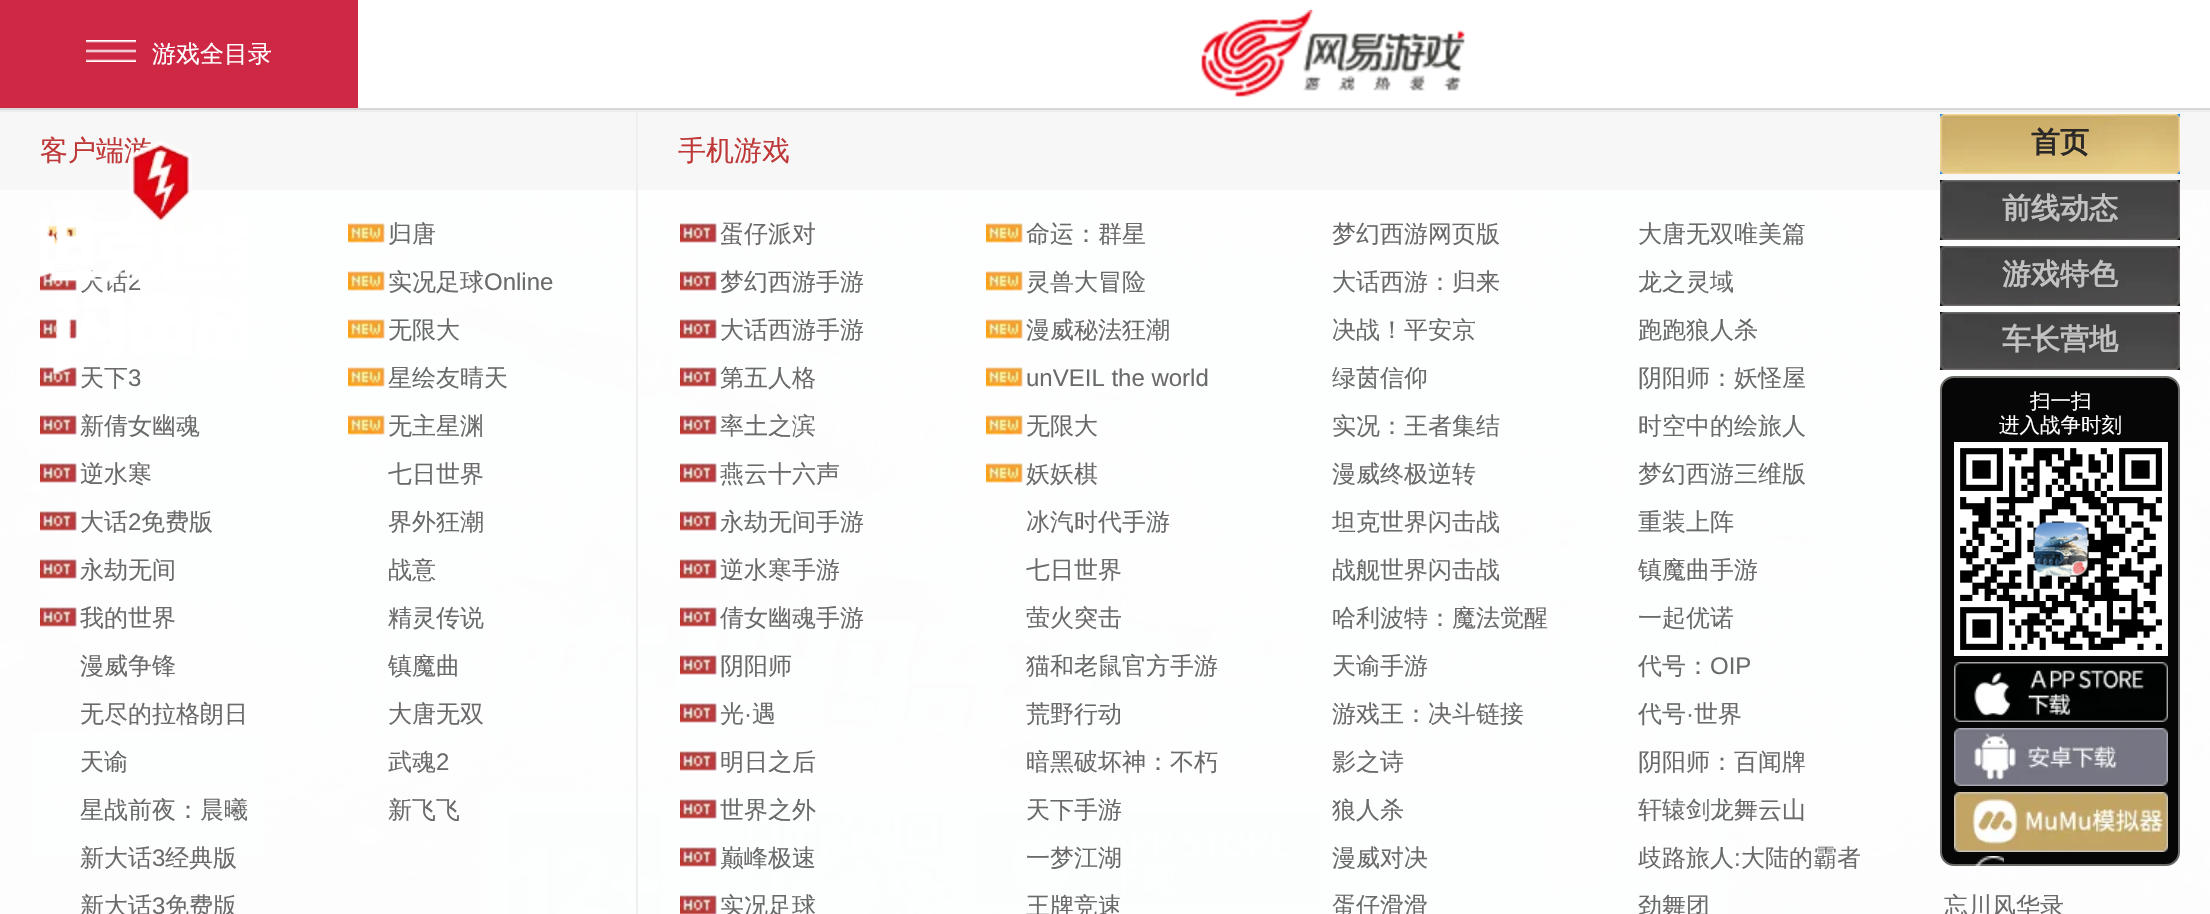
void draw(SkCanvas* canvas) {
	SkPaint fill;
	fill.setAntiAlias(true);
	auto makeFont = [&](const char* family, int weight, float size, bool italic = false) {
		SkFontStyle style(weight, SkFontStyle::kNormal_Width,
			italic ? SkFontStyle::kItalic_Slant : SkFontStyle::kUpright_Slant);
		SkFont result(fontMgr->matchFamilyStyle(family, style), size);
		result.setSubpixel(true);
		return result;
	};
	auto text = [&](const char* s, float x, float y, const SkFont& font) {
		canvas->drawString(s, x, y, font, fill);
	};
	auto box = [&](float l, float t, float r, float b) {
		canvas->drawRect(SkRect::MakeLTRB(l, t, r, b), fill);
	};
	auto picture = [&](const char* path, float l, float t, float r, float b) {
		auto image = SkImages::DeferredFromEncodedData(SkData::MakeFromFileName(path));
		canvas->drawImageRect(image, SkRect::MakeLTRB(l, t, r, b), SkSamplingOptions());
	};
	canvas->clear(0xFFFFFFFF);
	fill.setColor(0xFFCE2845);
	box(0, 0, 358, 108);
	picture("image0.png", 86, 40, 136, 62);
	picture("image1.png", 1201, 10, 1465, 97);
	fill.setColor(0xFFEDEDED);
	box(0, 110, 2210, 112);
	picture("image44.png", 0, 190, 2210, 914);
	picture("image45.png", 303, 612, 1907, 754);
	picture("image48.png", 479, 790, 1732, 914);
	picture("image49.png", 493, 798, 674, 914);
	fill.setColor(0xFFEFEFEF);
	box(636, 112, 638, 914);
	fill.setColor(0xFFF7F7F8);
	box(0, 112, 636, 190);
	box(638, 112, 2210, 190);
	picture("image2.png", 47, 225, 77, 245);
	picture("image3.png", 40, 271, 77, 291);
	picture("image4.png", 40, 319, 77, 339);
	picture("image5.png", 40, 367, 77, 387);
	picture("image6.png", 40, 415, 77, 435);
	picture("image7.png", 40, 463, 77, 483);
	picture("image4.png", 40, 511, 77, 531);
	picture("image8.png", 40, 559, 77, 579);
	picture("image9.png", 40, 607, 77, 627);
	picture("image10.png", 348, 223, 385, 243);
	picture("image11.png", 348, 271, 385, 291);
	picture("image12.png", 348, 319, 385, 339);
	picture("image13.png", 348, 367, 385, 387);
	picture("image14.png", 348, 415, 385, 435);
	picture("image15.png", 680, 223, 717, 243);
	picture("image16.png", 680, 271, 717, 291);
	picture("image17.png", 680, 319, 717, 339);
	picture("image18.png", 680, 367, 717, 387);
	picture("image19.png", 680, 415, 717, 435);
	picture("image20.png", 680, 463, 717, 483);
	picture("image21.png", 680, 511, 717, 531);
	picture("image22.png", 680, 559, 717, 579);
	picture("image23.png", 680, 607, 717, 627);
	picture("image24.png", 680, 655, 717, 675);
	picture("image25.png", 680, 703, 717, 723);
	picture("image26.png", 680, 751, 717, 771);
	picture("image27.png", 680, 799, 717, 819);
	picture("image28.png", 680, 847, 717, 867);
	picture("image29.png", 680, 895, 717, 914);
	picture("image30.png", 986, 223, 1023, 243);
	picture("image31.png", 986, 271, 1023, 291);
	picture("image32.png", 986, 319, 1023, 339);
	picture("image33.png", 986, 367, 1023, 387);
	picture("image34.png", 986, 415, 1023, 435);
	picture("image35.png", 986, 463, 1023, 483);
	fill.setColor(0xFFD8D8D8);
	box(0, 108, 2210, 110);
	fill.setColor(0xFF007AFF);
	box(1940, 114, 2180, 174);
	picture("image37.png", 1940, 114, 2180, 174);
	fill.setColor(0xFF000000);
	box(1940, 180, 2180, 240);
	picture("image38.png", 1940, 180, 2180, 240);
	box(1940, 246, 2180, 306);
	picture("image38.png", 1940, 246, 2180, 306);
	box(1940, 312, 2180, 370);
	picture("image39.png", 1940, 312, 2180, 370);
	fill.setColor(0xFF060607);
	canvas->drawRoundRect(SkRect::MakeLTRB(1941, 377, 2179, 865), 13, 13, fill);
	fill.setStyle(SkPaint::kStroke_Style);
	fill.setStrokeWidth(2);
	fill.setColor(0xFF6C6A66);
	canvas->drawRoundRect(SkRect::MakeLTRB(1941, 377, 2179, 865), 13, 13, fill);
	picture("image40.png", 1954, 442, 2168, 656);
	picture("image41.png", 1954, 662, 2168, 722);
	picture("image42.png", 1954, 728, 2168, 786);
	picture("image43.png", 1954, 792, 2168, 852);
	picture("image46.png", 996, 610, 1180, 767);
	picture("image47.png", 30, 732, 266, 854);
	picture("image50.png", 741, 812, 944, 914);
	picture("image51.png", 975, 810, 1324, 908);
	picture("image52.png", 1343, 806, 1520, 914);
	picture("image53.png", 1537, 806, 1714, 914);
	picture("image54.png", 1974, 856, 2004, 869);
	auto font1 = makeFont("WenQuanYi Zen Hei", 500, 24);
	fill.setStyle(SkPaint::kFill_Style);
	fill.setColor(0xFFFFFFFF);
	text("游戏全目录", 152, 62, font1);
	auto font2 = makeFont("WenQuanYi Zen Hei", 500, 28);
	fill.setColor(0xFFBF3838);
	text("客户端游", 40, 160, font2);
	text("手机游戏", 678, 160, font2);
	fill.setColor(0xFF6A6A6A);
	text("大话", 80, 290, font1);
	auto font3 = makeFont("Liberation Sans", 400, 24);
	text("2", 128, 290, font3);
	text("天下", 80, 386, font1);
	text("3", 128, 386, font3);
	text("新倩女幽魂", 80, 434, font1);
	text("逆水寒", 80, 482, font1);
	text("大话", 80, 530, font1);
	text("2", 128, 530, font3);
	text("免费版", 141, 530, font1);
	text("永劫无间", 80, 578, font1);
	text("我的世界", 80, 626, font1);
	text("漫威争锋", 80, 674, font1);
	text("无尽的拉格朗日", 80, 722, font1);
	text("天谕", 80, 770, font1);
	text("星战前夜：晨曦", 80, 818, font1);
	text("新大话", 80, 866, font1);
	text("3", 152, 866, font3);
	text("经典版", 165, 866, font1);
	text("新大话", 80, 914, font1);
	text("3", 152, 914, font3);
	text("免费版", 165, 914, font1);
	text("归唐", 388, 242, font1);
	text("实况足球", 388, 290, font1);
	text("Online", 484, 290, font3);
	text("无限大", 388, 338, font1);
	text("星绘友晴天", 388, 386, font1);
	text("无主星渊", 388, 434, font1);
	text("七日世界", 388, 482, font1);
	text("界外狂潮", 388, 530, font1);
	text("战意", 388, 578, font1);
	text("精灵传说", 388, 626, font1);
	text("镇魔曲", 388, 674, font1);
	text("大唐无双", 388, 722, font1);
	text("武魂", 388, 770, font1);
	text("2", 436, 770, font3);
	text("新飞飞", 388, 818, font1);
	text("蛋仔派对", 720, 242, font1);
	text("梦幻西游手游", 720, 290, font1);
	text("大话西游手游", 720, 338, font1);
	text("第五人格", 720, 386, font1);
	text("率土之滨", 720, 434, font1);
	text("燕云十六声", 720, 482, font1);
	text("永劫无间手游", 720, 530, font1);
	text("逆水寒手游", 720, 578, font1);
	text("倩女幽魂手游", 720, 626, font1);
	text("阴阳师", 720, 674, font1);
	text("光", 720, 722, font1);
	text("·", 744, 722, font3);
	text("遇", 752, 722, font1);
	text("明日之后", 720, 770, font1);
	text("世界之外", 720, 818, font1);
	text("巅峰极速", 720, 866, font1);
	text("实况足球", 720, 914, font1);
	text("命运：群星", 1026, 242, font1);
	text("灵兽大冒险", 1026, 290, font1);
	text("漫威秘法狂潮", 1026, 338, font1);
	text("unVEIL the world", 1026, 386, font3);
	text("无限大", 1026, 434, font1);
	text("妖妖棋", 1026, 482, font1);
	text("冰汽时代手游", 1026, 530, font1);
	text("七日世界", 1026, 578, font1);
	text("萤火突击", 1026, 626, font1);
	text("猫和老鼠官方手游", 1026, 674, font1);
	text("荒野行动", 1026, 722, font1);
	text("暗黑破坏神：不朽", 1026, 770, font1);
	text("天下手游", 1026, 818, font1);
	text("一梦江湖", 1026, 866, font1);
	text("王牌竞速", 1026, 914, font1);
	text("梦幻西游网页版", 1332, 242, font1);
	text("大话西游：归来", 1332, 290, font1);
	text("决战！平安京", 1332, 338, font1);
	text("绿茵信仰", 1332, 386, font1);
	text("实况：王者集结", 1332, 434, font1);
	text("漫威终极逆转", 1332, 482, font1);
	text("坦克世界闪击战", 1332, 530, font1);
	text("战舰世界闪击战", 1332, 578, font1);
	text("哈利波特：魔法觉醒", 1332, 626, font1);
	text("天谕手游", 1332, 674, font1);
	text("游戏王：决斗链接", 1332, 722, font1);
	text("影之诗", 1332, 770, font1);
	text("狼人杀", 1332, 818, font1);
	text("漫威对决", 1332, 866, font1);
	text("蛋仔滑滑", 1332, 914, font1);
	text("大唐无双唯美篇", 1638, 242, font1);
	text("龙之灵域", 1638, 290, font1);
	text("跑跑狼人杀", 1638, 338, font1);
	text("阴阳师：妖怪屋", 1638, 386, font1);
	text("时空中的绘旅人", 1638, 434, font1);
	text("梦幻西游三维版", 1638, 482, font1);
	text("重装上阵", 1638, 530, font1);
	text("镇魔曲手游", 1638, 578, font1);
	text("一起优诺", 1638, 626, font1);
	text("代号：", 1638, 674, font1);
	text("OIP", 1710, 674, font3);
	text("代号", 1638, 722, font1);
	text("·", 1686, 722, font3);
	text("世界", 1694, 722, font1);
	text("阴阳师：百闻牌", 1638, 770, font1);
	text("轩辕剑龙舞云山", 1638, 818, font1);
	text("歧路旅人", 1638, 866, font1);
	text(":", 1734, 866, font3);
	text("大陆的霸者", 1741, 866, font1);
	text("劲舞团", 1638, 914, font1);
	text("忘川风华录", 1944, 914, font1);
	picture("image36.png", 40, 140, 248, 374);
	auto font4 = makeFont("WenQuanYi Zen Hei", 700, 29);
	fill.setColor(0xFF2A2928);
	text("首页", 2031, 152, font4);
	fill.setColor(0xFFC2C2C2);
	text("前线动态", 2002, 218, font4);
	text("游戏特色", 2002, 284, font4);
	text("车长营地", 2002, 349, font4);
	auto font5 = makeFont("WenQuanYi Zen Hei", 500, 20.5f);
	fill.setColor(0xFFFFFFFF);
	text("扫一扫", 2030, 408, font5);
	text("进入战争时刻", 1999, 432, font5);
}
